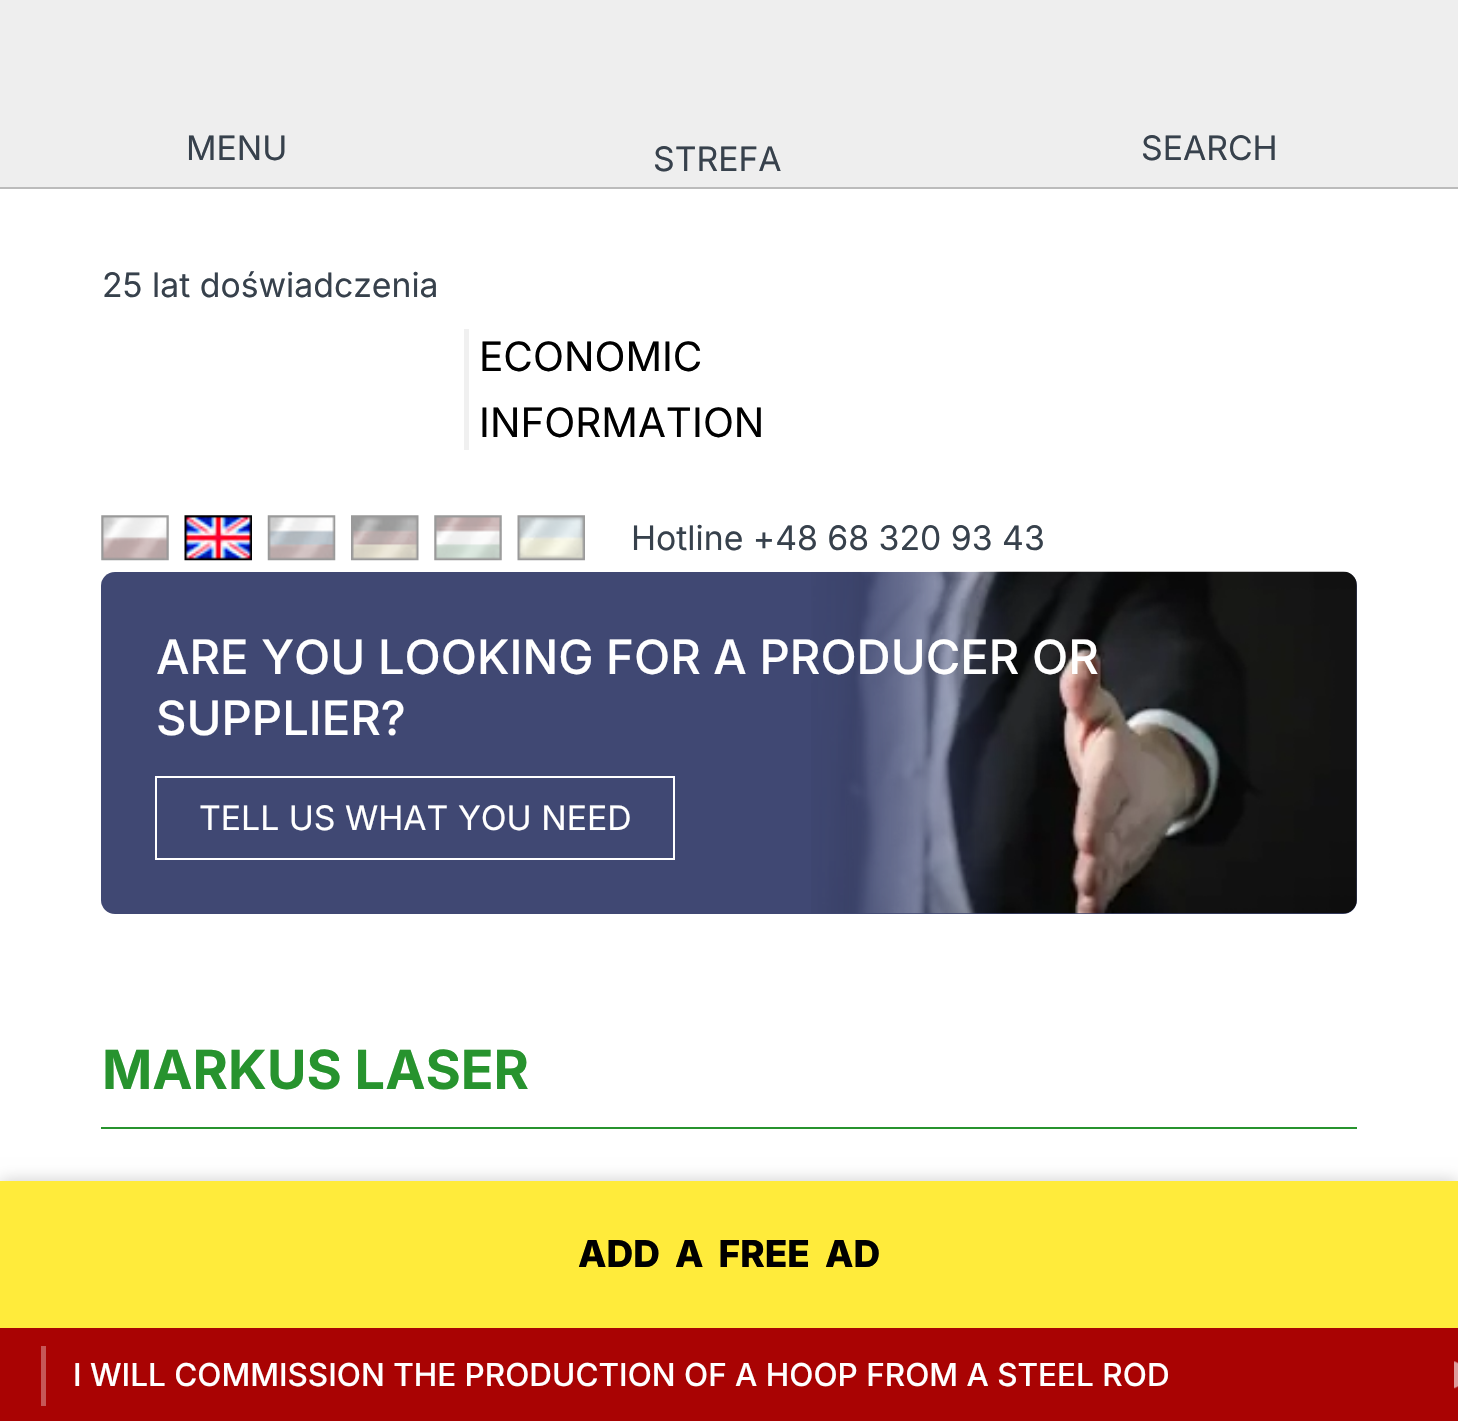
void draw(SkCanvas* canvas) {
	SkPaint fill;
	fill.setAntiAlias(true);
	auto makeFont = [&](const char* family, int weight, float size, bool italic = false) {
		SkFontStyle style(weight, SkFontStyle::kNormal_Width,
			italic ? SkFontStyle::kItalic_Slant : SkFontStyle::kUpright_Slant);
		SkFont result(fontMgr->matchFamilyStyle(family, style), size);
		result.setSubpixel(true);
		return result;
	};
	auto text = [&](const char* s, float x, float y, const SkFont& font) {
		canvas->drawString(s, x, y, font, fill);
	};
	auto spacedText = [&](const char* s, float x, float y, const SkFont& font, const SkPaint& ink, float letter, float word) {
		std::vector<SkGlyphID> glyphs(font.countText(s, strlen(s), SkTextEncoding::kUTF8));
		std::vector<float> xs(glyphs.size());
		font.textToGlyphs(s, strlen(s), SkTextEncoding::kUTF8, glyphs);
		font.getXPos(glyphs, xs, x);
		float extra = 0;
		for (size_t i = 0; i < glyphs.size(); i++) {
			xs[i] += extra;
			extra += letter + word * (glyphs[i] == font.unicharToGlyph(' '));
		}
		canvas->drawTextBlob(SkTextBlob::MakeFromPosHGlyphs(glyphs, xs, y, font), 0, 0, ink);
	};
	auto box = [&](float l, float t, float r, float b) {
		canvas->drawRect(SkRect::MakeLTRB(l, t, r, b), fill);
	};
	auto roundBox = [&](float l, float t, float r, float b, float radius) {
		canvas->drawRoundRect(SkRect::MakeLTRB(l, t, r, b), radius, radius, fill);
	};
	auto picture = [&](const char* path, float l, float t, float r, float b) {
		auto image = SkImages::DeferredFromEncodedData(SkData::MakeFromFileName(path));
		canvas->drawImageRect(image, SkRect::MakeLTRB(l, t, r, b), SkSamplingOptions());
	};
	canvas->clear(0xFFFFFFFF);
	fill.setColor(0xFFEEEEEE);
	box(0, 0, 1458, 187);
	fill.setColor(0xFFBBBBBB);
	box(0, 187, 1458, 189);
	fill.setColor(0xFFF0F0F0);
	box(464, 329, 469, 450);
	picture("image0.png", 101, 515, 169, 561);
	picture("image1.png", 184, 515, 252, 561);
	picture("image2.png", 267, 515, 336, 561);
	picture("image3.png", 351, 515, 419, 561);
	picture("image4.png", 434, 515, 502, 561);
	picture("image5.png", 517, 515, 585, 561);
	fill.setColor(0xFF404873);
	roundBox(101, 572, 1357, 914, 14);
	picture("image6.png", 811, 571, 1357, 914);
	fill.setStyle(SkPaint::kStroke_Style);
	fill.setStrokeWidth(2);
	fill.setColor(0xFFFFFFFF);
	canvas->drawRect(SkRect::MakeLTRB(156, 777, 674, 859), fill);
	fill.setStyle(SkPaint::kFill_Style);
	fill.setColor(0xFF27932E);
	box(101, 1127, 1357, 1129);
	fill.setColor(0x33000000);
	fill.setMaskFilter(SkMaskFilter::MakeBlur(kNormal_SkBlurStyle, 8));
	canvas->drawRect(SkRect::MakeLTRB(0, 1181, 1458, 1328), fill);
	fill.setMaskFilter(nullptr);
	fill.setColor(0xFFFFEB3B);
	box(0, 1181, 1458, 1328);
	fill.setColor(0xFFA90303);
	box(0, 1328, 1458, 1421);
	fill.setColor(0xFFC65757);
	box(41, 1346, 46, 1406);
	picture("image7.png", 1454, 1361, 1458, 1389);
	auto font1 = makeFont("Inter", 400, 33.75f);
	fill.setColor(0xFF37414C);
	text("MENU", 186, 160, font1);
	text("STREFA", 653, 171, font1);
	text("SEARCH", 1141, 160, font1);
	text("25 lat doświadczenia", 102, 297, font1);
	auto font2 = makeFont("Inter", 400, 40.5f);
	fill.setColor(0xFF000000);
	text("ECONOMIC", 479, 371, font2);
	text("INFORMATION", 479, 437, font2);
	fill.setColor(0xFF37414C);
	text("Hotline +48 68 320 93 43", 631, 550, font1);
	auto font3 = makeFont("Inter", 500, 47.25f);
	fill.setColor(0xFFFFFFFF);
	text("ARE YOU LOOKING FOR A PRODUCER OR", 156, 674, font3);
	text("SUPPLIER?", 156, 735, font3);
	text("TELL US WHAT YOU NEED", 199, 830, font1);
	auto font4 = makeFont("Inter", 700, 54);
	fill.setColor(0xFF27932E);
	text("MARKUS LASER", 102, 1089, font4);
	auto font5 = makeFont("Inter", 800, 37);
	fill.setColor(0xFF000000);
	spacedText("ADD A FREE AD", 578, 1267, font5, fill, 0, 7);
	auto font6 = makeFont("Inter", 500, 31.5f);
	fill.setColor(0xFFFFFFFF);
	text("I WILL COMMISSION THE PRODUCTION OF A HOOP FROM A STEEL ROD", 73, 1386, font6);
}
